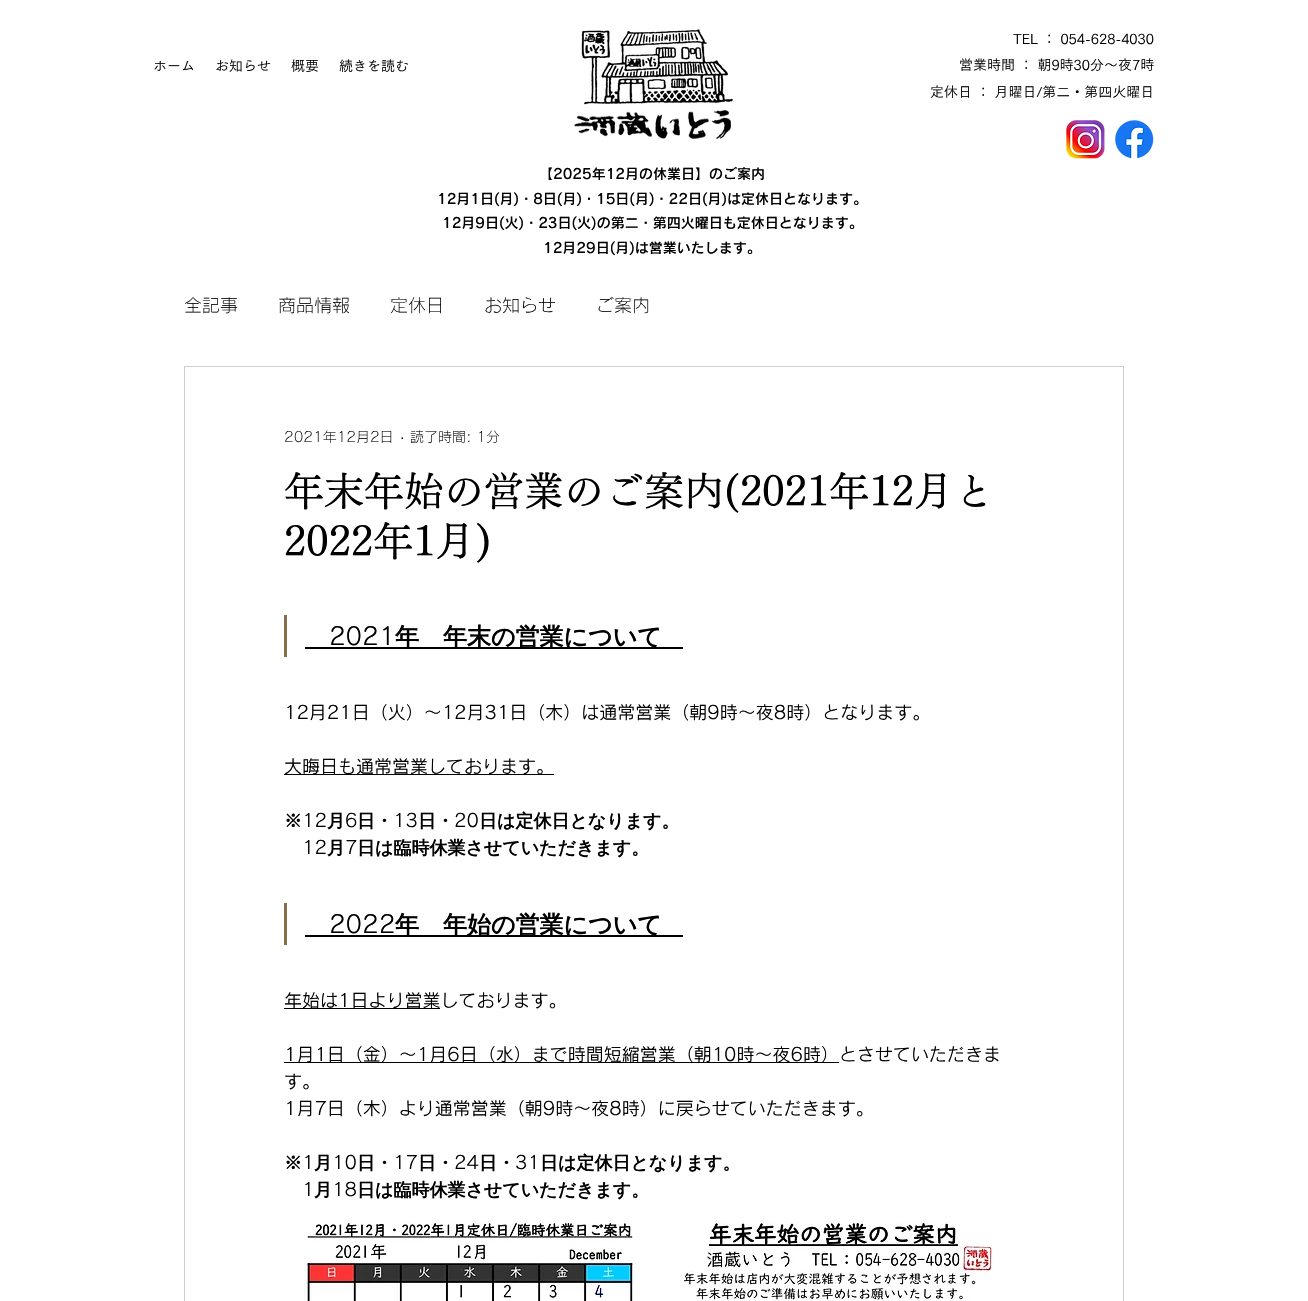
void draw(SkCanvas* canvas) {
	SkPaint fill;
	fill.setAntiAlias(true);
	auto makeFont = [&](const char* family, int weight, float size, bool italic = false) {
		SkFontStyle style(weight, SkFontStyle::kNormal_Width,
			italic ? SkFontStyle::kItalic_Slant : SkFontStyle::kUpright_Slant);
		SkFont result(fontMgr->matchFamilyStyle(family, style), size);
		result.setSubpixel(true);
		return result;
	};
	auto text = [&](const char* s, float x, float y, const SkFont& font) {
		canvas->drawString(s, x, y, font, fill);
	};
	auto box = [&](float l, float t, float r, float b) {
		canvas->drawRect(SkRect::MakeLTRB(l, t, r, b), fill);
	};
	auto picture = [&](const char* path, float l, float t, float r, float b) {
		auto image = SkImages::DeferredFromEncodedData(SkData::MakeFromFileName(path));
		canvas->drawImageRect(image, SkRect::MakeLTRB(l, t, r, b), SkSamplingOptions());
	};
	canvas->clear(0xFFFFFFFF);
	picture("image0.png", 581, 29, 733, 105);
	picture("image1.png", 574, 111, 652, 137);
	picture("image2.png", 655, 110, 731, 139);
	picture("image3.png", 1066, 120, 1105, 159);
	picture("image4.png", 1115, 120, 1154, 159);
	fill.setStyle(SkPaint::kStroke_Style);
	fill.setStrokeWidth(1);
	fill.setColor(0xFFCFCFCF);
	canvas->drawRect(SkRect::MakeLTRB(184.5f, 366.5f, 1123.5f, 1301.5f), fill);
	fill.setStyle(SkPaint::kFill_Style);
	fill.setColor(0xFF886F4A);
	box(284, 615, 287, 657);
	fill.setColor(0xFF000000);
	box(305, 647, 683, 649);
	box(284, 774, 554, 775);
	fill.setColor(0xFF886F4A);
	box(284, 903, 287, 945);
	fill.setColor(0xFF000000);
	box(305, 935, 683, 937);
	box(284, 1008, 440, 1009);
	box(284, 1062, 839, 1063);
	picture("image5.png", 304, 1223, 994, 1301);
	auto font1 = makeFont("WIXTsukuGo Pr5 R", 400, 14);
	text("ホーム", 153, 71, font1);
	text("お知らせ", 215, 71, font1);
	text("概要", 291, 71, font1);
	text("続きを読む", 339, 71, font1);
	text("TEL ： 054-628-4030", 1013, 44, font1);
	text("営業時間 ： 朝9時30分～夜7時", 959, 70, font1);
	text("定休日 ： 月曜日/第二・第四火曜日", 930, 97, font1);
	auto font2 = makeFont("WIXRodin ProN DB", 600, 14);
	text("【2025年12月の休業日】のご案内", 539, 179, font2);
	text("12月1日(月)・8日(月)・15日(月)・22日(月)は定休日となります。", 437, 204, font2);
	text("12月9日(火)・23日(火)の第二・第四火曜日も定休日となります。", 442, 228, font2);
	text("12月29日(月)は営業いたします。", 543, 253, font2);
	auto font3 = makeFont("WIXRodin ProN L", 300, 18);
	text("全記事", 184, 312, font3);
	text("商品情報", 278, 312, font3);
	text("定休日", 390, 312, font3);
	text("お知らせ", 484, 312, font3);
	text("ご案内", 596, 312, font3);
	auto font4 = makeFont("WIXRodin ProN L", 300, 14);
	text("2021年12月2日", 284, 442, font4);
	auto font5 = makeFont("Liberation Sans", 400, 14);
	text("·", 400, 442, font5);
	text("読了時間: 1分", 410, 442, font4);
	auto font6 = makeFont("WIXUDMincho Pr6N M", 500, 40);
	text("年末年始の営業のご案内(2021年12月と", 284, 506, font6);
	text("2022年1月)", 284, 556, font6);
	auto font7 = makeFont("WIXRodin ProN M", 500, 24);
	text("2021", 329, 645, font7);
	auto font8 = makeFont("WenQuanYi Zen Hei", 700, 24);
	text("年　年末の営業について", 395, 645, font8);
	auto font9 = makeFont("WIXRodin ProN M", 500, 18);
	text("12月21日（火）～12月31日（木）は通常営業（朝9時～夜8時）となります。", 284, 719, font9);
	text("大晦日も通常営業しております。", 284, 773, font9);
	auto font10 = makeFont("WenQuanYi Zen Hei", 700, 18);
	text("※", 284, 827, font10);
	text("12", 302, 827, font9);
	text("月", 327, 827, font10);
	text("6", 345, 827, font9);
	text("日・", 357, 827, font10);
	text("13", 393, 827, font9);
	text("日・", 418, 827, font10);
	text("20", 454, 827, font9);
	text("日は定休日となります。", 479, 827, font10);
	text("12", 302, 854, font9);
	text("月", 327, 854, font10);
	text("7", 345, 854, font9);
	text("日は臨時休業させていただきます。", 357, 854, font10);
	text("2022", 329, 933, font7);
	text("年　年始の営業について", 395, 933, font8);
	text("年始は1日より営業しております。", 284, 1007, font9);
	text("1月1日（金）～1月6日（水）まで時間短縮営業（朝10時～夜6時）とさせていただきま", 284, 1061, font9);
	text("す。", 284, 1088, font9);
	text("1月7日（木）より通常営業（朝9時～夜8時）に戻らせていただきます。", 284, 1115, font9);
	text("※", 284, 1169, font10);
	text("1", 302, 1169, font9);
	text("月", 314, 1169, font10);
	text("10", 332, 1169, font9);
	text("日・", 357, 1169, font10);
	text("17", 393, 1169, font9);
	text("日・", 418, 1169, font10);
	text("24", 454, 1169, font9);
	text("日・", 479, 1169, font10);
	text("31", 515, 1169, font9);
	text("日は定休日となります。", 540, 1169, font10);
	text("1", 302, 1196, font9);
	text("月", 314, 1196, font10);
	text("18", 332, 1196, font9);
	text("日は臨時休業させていただきます。", 357, 1196, font10);
}
